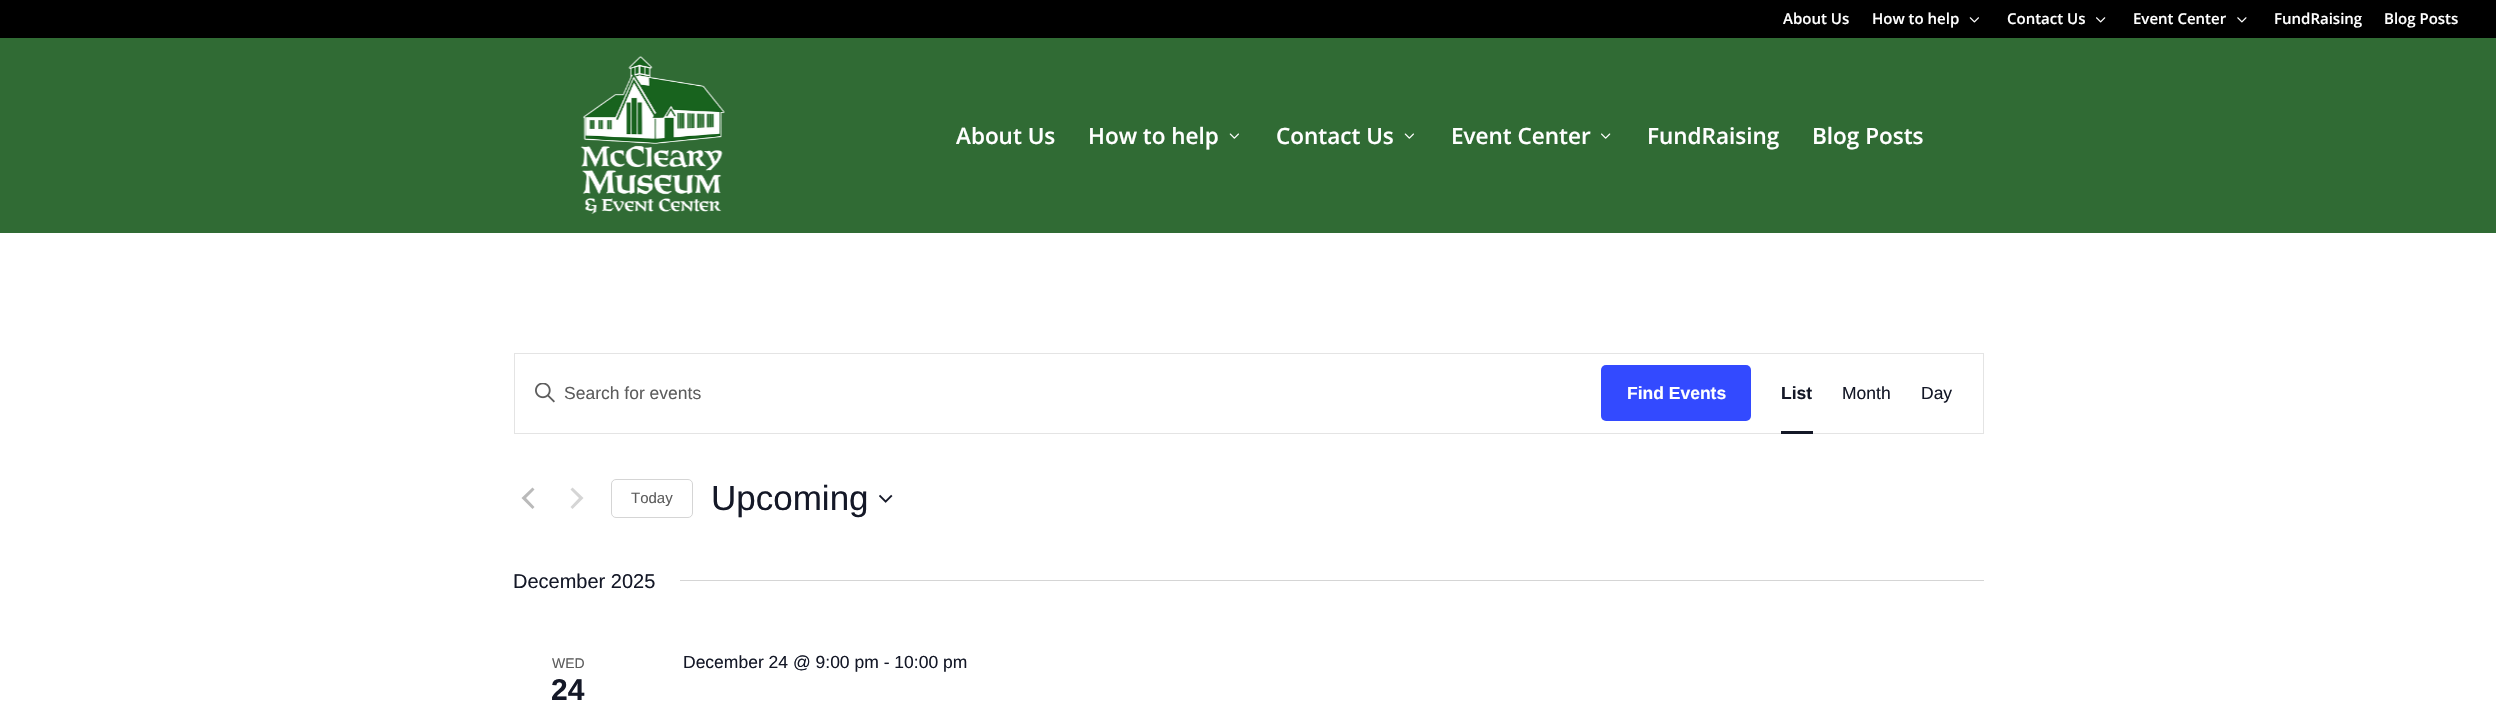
void draw(SkCanvas* canvas) {
	SkPaint fill;
	fill.setAntiAlias(true);
	auto makeFont = [&](const char* family, int weight, float size, bool italic = false) {
		SkFontStyle style(weight, SkFontStyle::kNormal_Width,
			italic ? SkFontStyle::kItalic_Slant : SkFontStyle::kUpright_Slant);
		SkFont result(fontMgr->matchFamilyStyle(family, style), size);
		result.setSubpixel(true);
		return result;
	};
	auto text = [&](const char* s, float x, float y, const SkFont& font) {
		canvas->drawString(s, x, y, font, fill);
	};
	auto box = [&](float l, float t, float r, float b) {
		canvas->drawRect(SkRect::MakeLTRB(l, t, r, b), fill);
	};
	auto roundBox = [&](float l, float t, float r, float b, float radius) {
		canvas->drawRoundRect(SkRect::MakeLTRB(l, t, r, b), radius, radius, fill);
	};
	auto picture = [&](const char* path, float l, float t, float r, float b) {
		auto image = SkImages::DeferredFromEncodedData(SkData::MakeFromFileName(path));
		canvas->drawImageRect(image, SkRect::MakeLTRB(l, t, r, b), SkSamplingOptions());
	};
	canvas->clear(0xFFFFFFFF);
	fill.setColor(0xFF000000);
	box(0, 0, 2496, 38);
	picture("image0.png", 1969, 17, 1979, 23);
	picture("image1.png", 2096, 17, 2106, 23);
	picture("image2.png", 2237, 17, 2247, 23);
	fill.setColor(0xFF306B34);
	box(0, 38, 2496, 233);
	picture("image3.png", 580, 56, 725, 214);
	picture("image4.png", 1229, 133, 1239, 139);
	picture("image4.png", 1404, 133, 1414, 139);
	picture("image5.png", 1601, 133, 1611, 139);
	fill.setStyle(SkPaint::kStroke_Style);
	fill.setStrokeWidth(1);
	fill.setColor(0xFFE4E4E4);
	canvas->drawRect(SkRect::MakeLTRB(514.5f, 353.5f, 1983.5f, 433.5f), fill);
	picture("image6.png", 535, 383, 555, 403);
	fill.setStyle(SkPaint::kFill_Style);
	fill.setColor(0xFF334AFF);
	roundBox(1601, 365, 1751, 421, 5);
	fill.setColor(0xFF141827);
	box(1781, 431, 1813, 434);
	fill.setColor(0xFFBABABA);
	canvas->drawPath(SkPathBuilder().moveTo(534.5f, 507).lineTo(532.5f, 509).lineTo(521.5f, 498).lineTo(532.5f, 487.5f).lineTo(534.5f, 489.5f).lineTo(526, 498).close().detach(), fill);
	fill.setColor(0xFFD5D5D5);
	canvas->drawPath(SkPathBuilder().moveTo(570.5f, 489.5f).lineTo(572.5f, 487.5f).lineTo(583.5f, 498).lineTo(572.5f, 509).lineTo(570.5f, 507).lineTo(579, 498).close().detach(), fill);
	fill.setStyle(SkPaint::kStroke_Style);
	canvas->drawRoundRect(SkRect::MakeLTRB(611.5f, 479.5f, 692.5f, 517.5f), 4.5f, 4.5f, fill);
	picture("image7.png", 879, 494, 893, 503);
	fill.setStyle(SkPaint::kFill_Style);
	box(680, 580, 1984, 581);
	auto font1 = makeFont("Open Sans", 600, 15);
	fill.setColor(0xFFFFFFFF);
	text("About Us", 1783, 24, font1);
	text("How to help", 1872, 24, font1);
	text("Contact Us", 2007, 24, font1);
	text("Event Center", 2133, 24, font1);
	text("FundRaising", 2274, 24, font1);
	text("Blog Posts", 2384, 24, font1);
	auto font2 = makeFont("Open Sans", 600, 22.5f);
	text("About Us", 956, 144, font2);
	text("How to help", 1088, 144, font2);
	text("Contact Us", 1276, 144, font2);
	text("Event Center", 1451, 144, font2);
	text("FundRaising", 1647, 144, font2);
	text("Blog Posts", 1812, 144, font2);
	auto font3 = makeFont("Liberation Sans", 400, 17.5f);
	fill.setColor(0xFF5D5D5D);
	text("Search for events", 564, 399, font3);
	auto font4 = makeFont("Liberation Sans", 700, 17.5f);
	fill.setColor(0xFFFFFFFF);
	text("Find Events", 1627, 399, font4);
	fill.setColor(0xFF141827);
	text("List", 1781, 399, font4);
	text("Month", 1842, 399, font3);
	text("Day", 1921, 399, font3);
	auto font5 = makeFont("Liberation Sans", 400, 15);
	fill.setColor(0xFF5D5D5D);
	text("Today", 631, 503, font5);
	auto font6 = makeFont("Liberation Sans", 400, 35);
	fill.setColor(0xFF141827);
	text("Upcoming", 711, 510, font6);
	auto font7 = makeFont("Liberation Sans", 400, 20);
	text("December 2025", 513, 588, font7);
	auto font8 = makeFont("Liberation Sans", 400, 14);
	fill.setColor(0xFF5D5D5D);
	text("WED", 552, 668, font8);
	auto font9 = makeFont("Liberation Sans", 700, 30);
	fill.setColor(0xFF141827);
	text("24", 551, 700, font9);
	text("December 24 @ 9:00 pm - 10:00 pm", 683, 668, font3);
}
